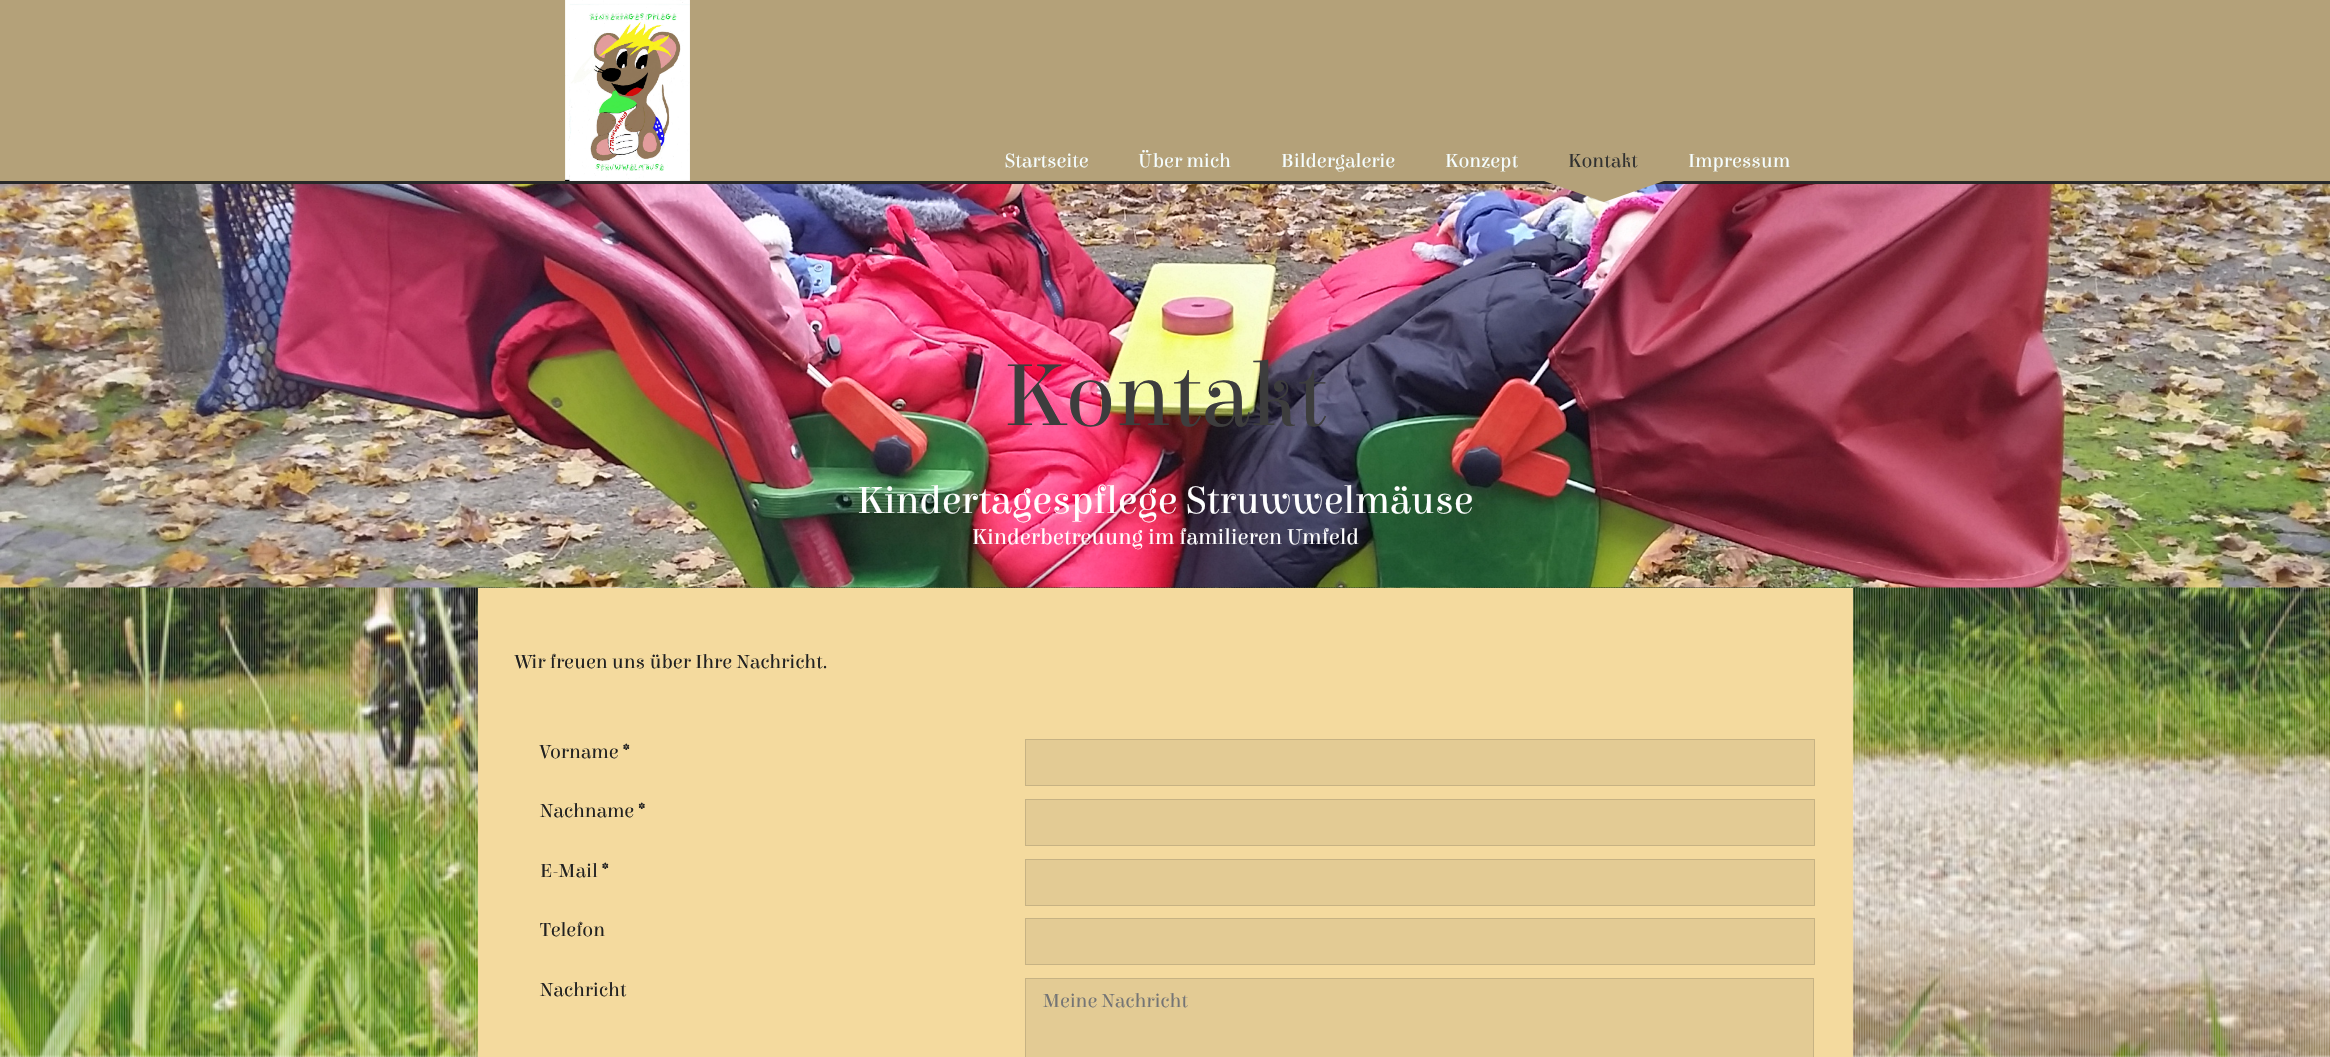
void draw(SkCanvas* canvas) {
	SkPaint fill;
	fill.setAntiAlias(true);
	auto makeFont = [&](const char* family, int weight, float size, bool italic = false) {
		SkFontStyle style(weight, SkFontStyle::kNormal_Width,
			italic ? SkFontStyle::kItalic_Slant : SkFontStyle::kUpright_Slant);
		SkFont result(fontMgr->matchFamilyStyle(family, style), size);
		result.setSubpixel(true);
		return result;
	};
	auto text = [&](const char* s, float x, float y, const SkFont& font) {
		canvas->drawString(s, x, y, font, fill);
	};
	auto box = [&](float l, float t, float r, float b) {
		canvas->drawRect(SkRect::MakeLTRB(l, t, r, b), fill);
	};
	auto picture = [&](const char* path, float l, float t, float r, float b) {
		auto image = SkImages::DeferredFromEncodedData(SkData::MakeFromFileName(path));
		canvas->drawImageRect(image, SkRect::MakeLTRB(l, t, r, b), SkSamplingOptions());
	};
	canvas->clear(0xFFFFFFFF);
	fill.setColor(0xFFB4A179);
	box(0, 0, 2330, 181);
	fill.setColor(0xFF292929);
	box(0, 181, 2330, 184);
	picture("image0.png", 565, 0, 690, 181);
	picture("image2.png", 0, 587, 2330, 1057);
	picture("image3.png", 0, 587, 2329, 1057);
	picture("image1.png", 0, 184, 2330, 588);
	fill.setColor(0xFFB4A179);
	canvas->drawPath(SkPathBuilder().moveTo(1544, 181).lineTo(1664, 181).lineTo(1604, 202).close().detach(), fill);
	fill.setColor(0xFFF4DA9E);
	box(478, 588, 1853, 1057);
	fill.setColor(0xFFE3CB94);
	canvas->drawRect(SkRect::MakeLTRB(1025.5f, 739.5f, 1814.5f, 785.5f), fill);
	fill.setStyle(SkPaint::kStroke_Style);
	fill.setStrokeWidth(1);
	fill.setColor(0xFFC6B283);
	canvas->drawRect(SkRect::MakeLTRB(1025.5f, 739.5f, 1814.5f, 785.5f), fill);
	fill.setStyle(SkPaint::kFill_Style);
	fill.setColor(0xFFE3CB94);
	canvas->drawRect(SkRect::MakeLTRB(1025.5f, 799.5f, 1814.5f, 845.5f), fill);
	fill.setStyle(SkPaint::kStroke_Style);
	fill.setColor(0xFFC6B283);
	canvas->drawRect(SkRect::MakeLTRB(1025.5f, 799.5f, 1814.5f, 845.5f), fill);
	fill.setStyle(SkPaint::kFill_Style);
	fill.setColor(0xFFE3CB94);
	canvas->drawRect(SkRect::MakeLTRB(1025.5f, 859.5f, 1814.5f, 905.5f), fill);
	fill.setStyle(SkPaint::kStroke_Style);
	fill.setColor(0xFFC6B283);
	canvas->drawRect(SkRect::MakeLTRB(1025.5f, 859.5f, 1814.5f, 905.5f), fill);
	fill.setStyle(SkPaint::kFill_Style);
	fill.setColor(0xFFE3CB94);
	canvas->drawRect(SkRect::MakeLTRB(1025.5f, 918.5f, 1814.5f, 964.5f), fill);
	fill.setStyle(SkPaint::kStroke_Style);
	fill.setColor(0xFFC6B283);
	canvas->drawRect(SkRect::MakeLTRB(1025.5f, 918.5f, 1814.5f, 964.5f), fill);
	fill.setStyle(SkPaint::kFill_Style);
	fill.setColor(0xFFE3CB94);
	canvas->drawRect(SkRect::MakeLTRB(1025.5f, 978.5f, 1813.5f, 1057.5f), fill);
	fill.setStyle(SkPaint::kStroke_Style);
	fill.setColor(0xFFC6B283);
	canvas->drawRect(SkRect::MakeLTRB(1025.5f, 978.5f, 1813.5f, 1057.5f), fill);
	auto font1 = makeFont("Elsie", 400, 20);
	fill.setStyle(SkPaint::kFill_Style);
	fill.setColor(0xFFF6FEFF);
	text("Startseite", 1005, 167, font1);
	text("Über mich", 1138, 167, font1);
	text("Bildergalerie", 1281, 167, font1);
	text("Konzept", 1445, 167, font1);
	fill.setColor(0xFF313130);
	text("Kontakt", 1568, 167, font1);
	fill.setColor(0xFFF6FEFF);
	text("Impressum", 1688, 167, font1);
	auto font2 = makeFont("Elsie", 400, 93);
	fill.setColor(0xFF3D3D3D);
	text("Kontakt", 1003, 425, font2);
	auto font3 = makeFont("Elsie", 400, 40);
	fill.setColor(0xFFFFFFFF);
	text("Kindertagespflege Struwwelmäuse", 857, 513, font3);
	auto font4 = makeFont("Elsie", 400, 22.5f);
	text("Kinderbetreuung im familieren Umfeld", 972, 544, font4);
	fill.setColor(0xFF212121);
	text("Wir freuen uns über Ihre Nachricht.", 515, 668, font1);
	text("Vorname *", 540, 758, font1);
	text("Nachname *", 540, 817, font1);
	text("E-Mail *", 540, 877, font1);
	text("Telefon", 540, 936, font1);
	text("Nachricht", 540, 996, font1);
	fill.setColor(0xFF757575);
	text("Meine Nachricht", 1043, 1007, font1);
}
